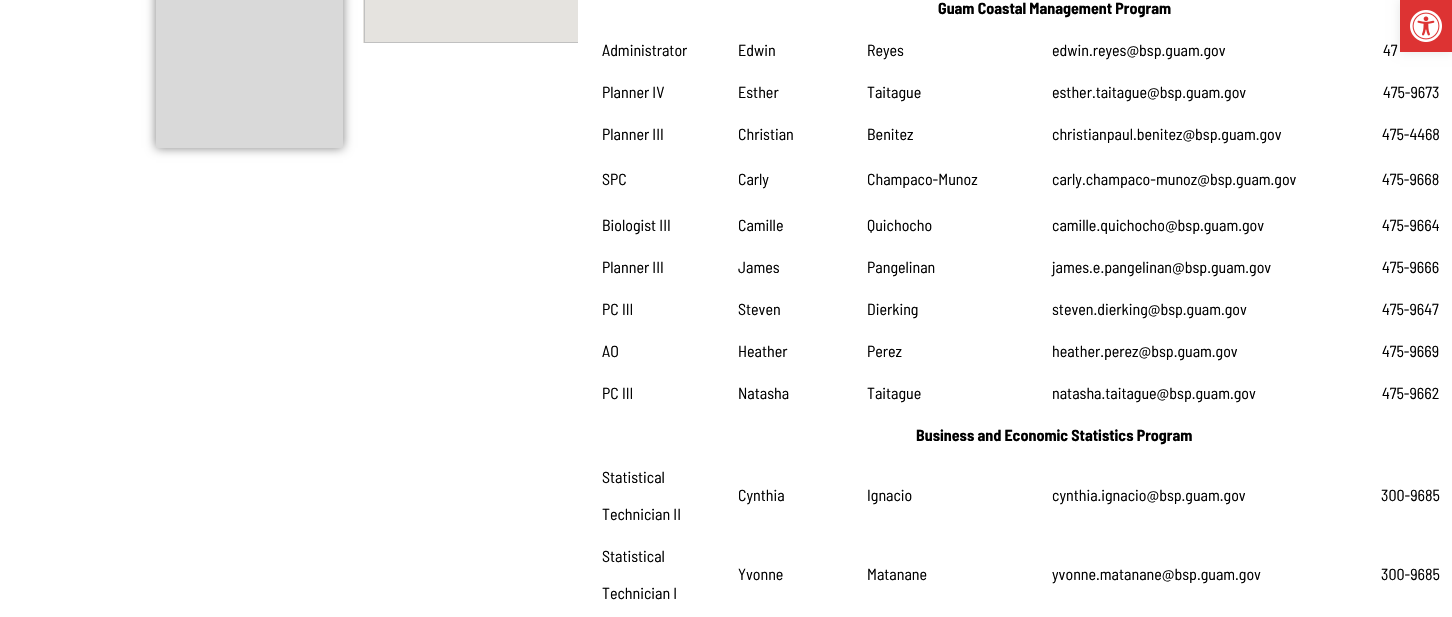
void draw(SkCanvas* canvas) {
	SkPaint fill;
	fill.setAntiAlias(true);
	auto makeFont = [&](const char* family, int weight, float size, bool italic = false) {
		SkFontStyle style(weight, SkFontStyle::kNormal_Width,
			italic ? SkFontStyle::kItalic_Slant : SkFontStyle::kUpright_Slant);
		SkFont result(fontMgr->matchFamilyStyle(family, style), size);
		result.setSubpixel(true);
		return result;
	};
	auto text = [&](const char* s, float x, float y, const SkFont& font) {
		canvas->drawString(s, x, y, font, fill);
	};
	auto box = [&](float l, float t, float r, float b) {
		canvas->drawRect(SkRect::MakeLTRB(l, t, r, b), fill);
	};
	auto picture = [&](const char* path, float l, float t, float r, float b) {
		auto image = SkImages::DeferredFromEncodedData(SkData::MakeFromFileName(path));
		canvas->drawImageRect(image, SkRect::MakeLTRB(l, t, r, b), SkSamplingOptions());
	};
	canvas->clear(0xFFFFFFFF);
	fill.setColor(0x1A000000);
	fill.setMaskFilter(SkMaskFilter::MakeBlur(kNormal_SkBlurStyle, 5));
	canvas->drawRect(SkRect::MakeLTRB(1400, 0, 1452, 52), fill);
	fill.setMaskFilter(nullptr);
	fill.setColor(0xFFDD3333);
	box(1400, 0, 1452, 52);
	picture("image0.png", 1410, 10, 1442, 42);
	fill.setColor(0x80000000);
	fill.setMaskFilter(SkMaskFilter::MakeBlur(kNormal_SkBlurStyle, 5));
	canvas->drawRect(SkRect::MakeLTRB(156, -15, 343, 148), fill);
	fill.setMaskFilter(nullptr);
	fill.setColor(0xFFD9D9D9);
	box(156, 0, 343, 148);
	picture("image1.png", 363, 0, 578, 43);
	auto font1 = makeFont("Barlow Semi Condensed", 700, 16);
	fill.setColor(0xFF000000);
	text("Guam Coastal Management Program", 938, 14, font1);
	auto font2 = makeFont("Barlow Semi Condensed", 400, 16);
	text("Administrator", 602, 56, font2);
	text("Edwin", 738, 56, font2);
	text("Reyes", 867, 56, font2);
	text("edwin.reyes@bsp.guam.gov", 1052, 56, font2);
	text("47", 1383, 56, font2);
	text("Planner IV", 602, 98, font2);
	text("Esther", 738, 98, font2);
	text("Taitague", 867, 98, font2);
	text("esther.taitague@bsp.guam.gov", 1052, 98, font2);
	text("475-9673", 1383, 98, font2);
	text("Planner III", 602, 140, font2);
	text("Christian", 738, 140, font2);
	text("Benitez", 867, 140, font2);
	text("christianpaul.benitez@bsp.guam.gov", 1052, 140, font2);
	text("475-4468", 1382, 140, font2);
	text("SPC", 602, 185, font2);
	text("Carly", 738, 185, font2);
	text("Champaco-Munoz", 867, 185, font2);
	text("carly.champaco-munoz@bsp.guam.gov", 1052, 185, font2);
	text("475-9668", 1382, 185, font2);
	text("Biologist III", 602, 231, font2);
	text("Camille", 738, 231, font2);
	text("Quichocho", 867, 231, font2);
	text("camille.quichocho@bsp.guam.gov", 1052, 231, font2);
	text("475-9664", 1382, 231, font2);
	text("Planner III", 602, 273, font2);
	text("James", 738, 273, font2);
	text("Pangelinan", 867, 273, font2);
	text("james.e.pangelinan@bsp.guam.gov", 1052, 273, font2);
	text("475-9666", 1382, 273, font2);
	text("PC III", 602, 315, font2);
	text("Steven", 738, 315, font2);
	text("Dierking", 867, 315, font2);
	text("steven.dierking@bsp.guam.gov", 1052, 315, font2);
	text("475-9647", 1382, 315, font2);
	text("AO", 602, 357, font2);
	text("Heather", 738, 357, font2);
	text("Perez", 867, 357, font2);
	text("heather.perez@bsp.guam.gov", 1052, 357, font2);
	text("475-9669", 1382, 357, font2);
	text("PC III", 602, 399, font2);
	text("Natasha", 738, 399, font2);
	text("Taitague", 867, 399, font2);
	text("natasha.taitague@bsp.guam.gov", 1052, 399, font2);
	text("475-9662", 1382, 399, font2);
	text("Business and Economic Statistics Program", 916, 441, font1);
	text("Statistical", 602, 483, font2);
	text("Technician II", 602, 520, font2);
	text("Cynthia", 738, 501, font2);
	text("Ignacio", 867, 501, font2);
	text("cynthia.ignacio@bsp.guam.gov", 1052, 501, font2);
	text("300-9685", 1381, 501, font2);
	text("Statistical", 602, 562, font2);
	text("Technician I", 602, 599, font2);
	text("Yvonne", 738, 580, font2);
	text("Matanane", 867, 580, font2);
	text("yvonne.matanane@bsp.guam.gov", 1052, 580, font2);
	text("300-9685", 1381, 580, font2);
}
